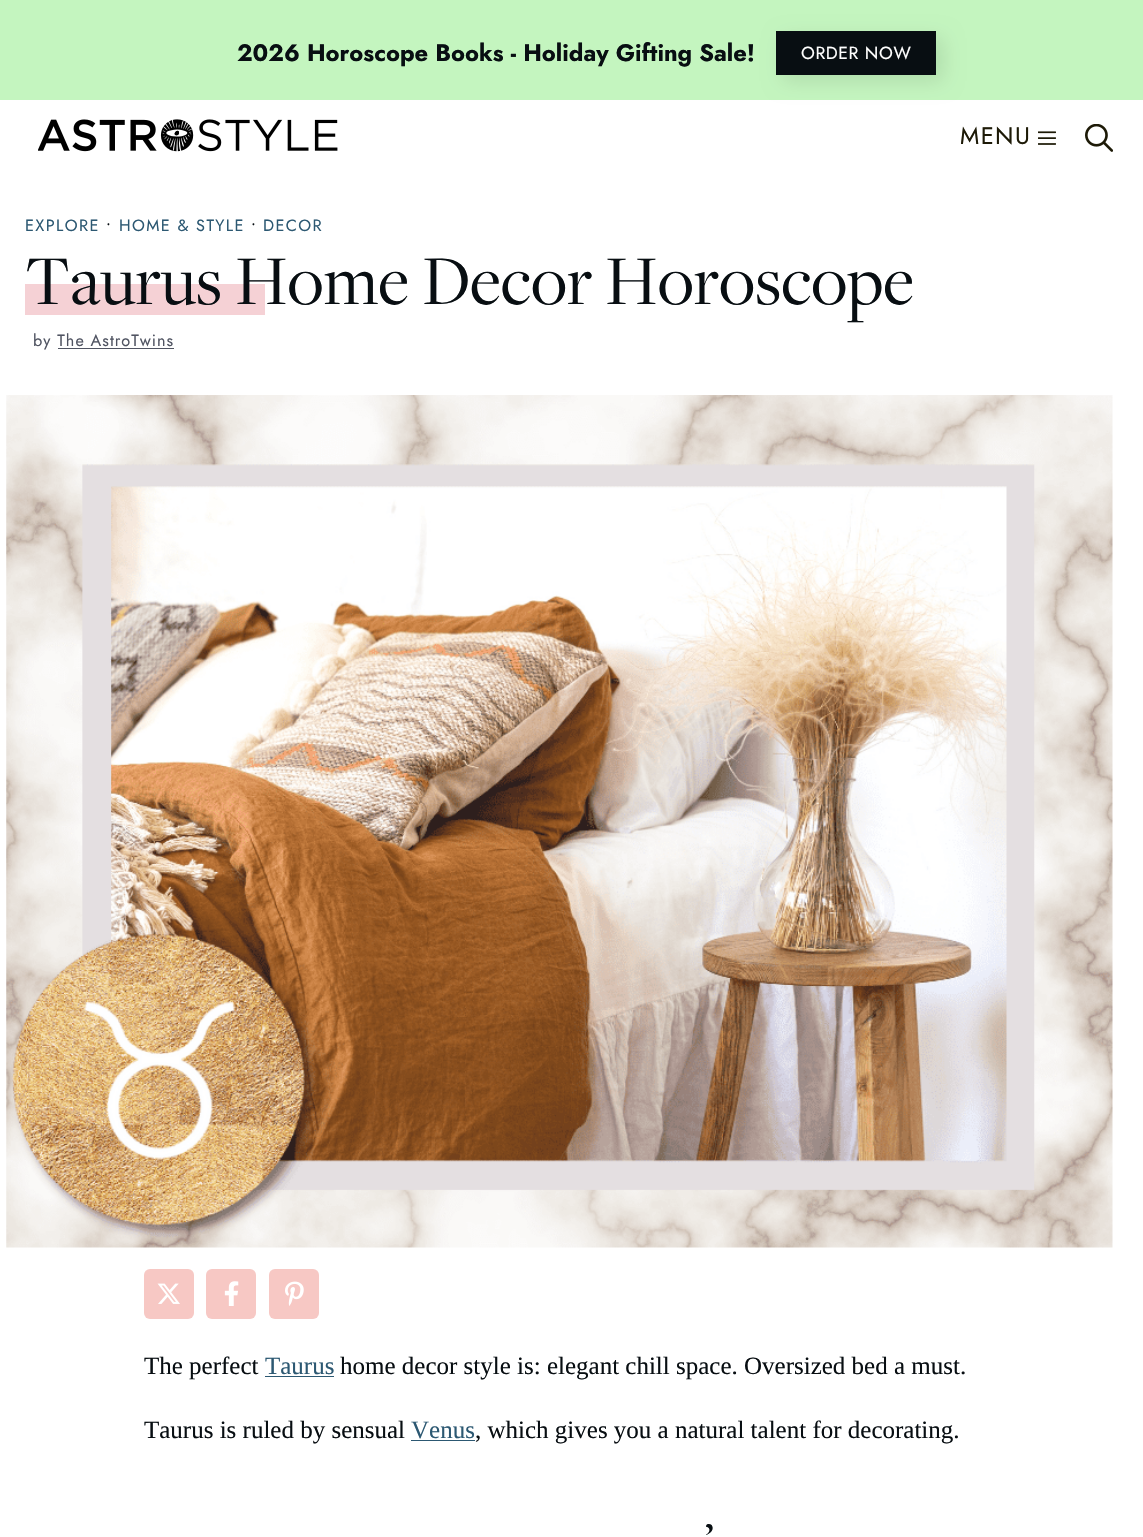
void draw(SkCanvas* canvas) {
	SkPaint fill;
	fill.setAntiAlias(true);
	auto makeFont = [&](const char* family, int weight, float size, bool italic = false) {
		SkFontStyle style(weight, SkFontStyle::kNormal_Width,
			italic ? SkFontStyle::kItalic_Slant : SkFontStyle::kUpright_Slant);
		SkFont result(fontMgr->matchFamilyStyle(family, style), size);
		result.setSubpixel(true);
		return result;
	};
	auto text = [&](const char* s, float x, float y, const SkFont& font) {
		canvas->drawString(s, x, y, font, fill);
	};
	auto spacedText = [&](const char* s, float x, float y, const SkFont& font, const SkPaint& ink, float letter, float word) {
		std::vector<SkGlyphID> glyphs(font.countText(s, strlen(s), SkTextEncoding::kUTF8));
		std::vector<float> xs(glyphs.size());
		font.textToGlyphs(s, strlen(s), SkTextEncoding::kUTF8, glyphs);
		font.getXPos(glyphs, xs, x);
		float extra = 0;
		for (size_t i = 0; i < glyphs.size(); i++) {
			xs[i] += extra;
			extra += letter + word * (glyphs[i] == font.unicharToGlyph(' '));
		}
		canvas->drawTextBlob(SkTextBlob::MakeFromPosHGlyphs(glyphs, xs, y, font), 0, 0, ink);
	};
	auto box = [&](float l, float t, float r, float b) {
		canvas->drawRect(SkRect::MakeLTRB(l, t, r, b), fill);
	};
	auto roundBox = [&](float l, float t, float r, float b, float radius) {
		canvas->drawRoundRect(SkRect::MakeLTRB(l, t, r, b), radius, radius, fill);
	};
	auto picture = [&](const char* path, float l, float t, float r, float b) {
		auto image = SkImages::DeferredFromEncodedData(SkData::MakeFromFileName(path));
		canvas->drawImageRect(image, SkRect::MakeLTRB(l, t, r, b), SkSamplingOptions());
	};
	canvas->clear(0xFFFFFFFF);
	fill.setColor(0xFFC4F5BF);
	box(0, 0, 1143, 100);
	fill.setColor(0x1A000000);
	fill.setMaskFilter(SkMaskFilter::MakeBlur(kNormal_SkBlurStyle, 10));
	canvas->drawRect(SkRect::MakeLTRB(783, 38, 943, 81), fill);
	fill.setMaskFilter(nullptr);
	fill.setColor(0xFF080E12);
	box(776, 31, 936, 75);
	picture("image0.png", 38, 119, 338, 152);
	picture("image1.png", 1038, 131, 1056, 145);
	picture("image2.png", 1085, 124, 1113, 152);
	{
		const SkColor colors[] = {0xFFFFFFFF, 0xFFFFFFFF, 0xFFF5D1D5, 0xFFF5D1D5, 0xFFFFFFFF, 0xFFFFFFFF};
		const float stops[] = {0, 0.55f, 0.55f, 0.9f, 0.9f, 1};
		const SkPoint ends[] = {{145, 234}, {145, 324}};
		fill.setShader(SkGradientShader::MakeLinear(ends, colors, stops, 6, SkTileMode::kClamp));
		fill.setAlpha(255);
	}
	box(25, 284, 265, 315);
	fill.setShader(nullptr);
	fill.setColor(0xFF505462);
	box(58, 348, 174, 349);
	picture("image3.png", 6, 395, 1113, 1248);
	fill.setColor(0xFFF7C8C4);
	roundBox(144, 1269, 194, 1319, 6);
	picture("image4.png", 157, 1283, 180, 1304);
	roundBox(206, 1269, 256, 1319, 6);
	picture("image5.png", 224, 1281, 239, 1306);
	roundBox(269, 1269, 319, 1319, 6);
	picture("image6.png", 285, 1281, 304, 1306);
	fill.setColor(0xFF2C5872);
	box(265, 1376, 334, 1377);
	box(411, 1440, 475, 1441);
	auto font1 = makeFont("Jost", 700, 23.75f);
	fill.setColor(0xFF080E12);
	text("2026 Horoscope Books - Holiday Gifting Sale!", 237, 61, font1);
	auto font2 = makeFont("Jost", 400, 17.5f);
	fill.setColor(0xFFFFFFFF);
	spacedText("ORDER NOW", 801, 59, font2, fill, 0.6f, 0);
	auto font3 = makeFont("Jost", 400, 23.75f);
	fill.setColor(0xFF1D1A07);
	spacedText("MENU", 960, 144, font3, fill, 1.4f, 0);
	auto font4 = makeFont("Jost", 400, 16.25f);
	fill.setColor(0xFF2C5872);
	spacedText("EXPLORE", 25, 231, font4, fill, 1.4f, 0);
	fill.setColor(0xFF080E12);
	spacedText("•", 106, 231, font4, fill, 1.4f, 0);
	fill.setColor(0xFF2C5872);
	spacedText("HOME & STYLE", 119, 231, font4, fill, 1.4f, 0);
	fill.setColor(0xFF080E12);
	spacedText("•", 251, 231, font4, fill, 1.4f, 0);
	fill.setColor(0xFF2C5872);
	spacedText("DECOR", 263, 231, font4, fill, 1.4f, 0);
	auto font5 = makeFont("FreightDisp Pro", 400, 72.5f);
	fill.setColor(0xFF080E12);
	text("Taurus Home Decor Horoscope", 25, 304, font5);
	fill.setColor(0xFF505462);
	spacedText("by The AstroTwins", 33, 346, font4, fill, 1, 0);
	auto font6 = makeFont("Liberation Serif", 400, 25);
	fill.setColor(0xFF080E12);
	text("The perfect", 144, 1374, font6);
	fill.setColor(0xFF2C5872);
	text("Taurus", 265, 1374, font6);
	fill.setColor(0xFF080E12);
	text("home decor style is: elegant chill space. Oversized bed a must.", 340, 1374, font6);
	text("Taurus is ruled by sensual", 144, 1438, font6);
	fill.setColor(0xFF2C5872);
	text("Venus", 411, 1438, font6);
	fill.setColor(0xFF080E12);
	text(", which gives you a natural talent for decorating.", 475, 1438, font6);
	auto font7 = makeFont("FreightDisp Pro", 700, 40);
	text("’", 705, 1550, font7);
}
